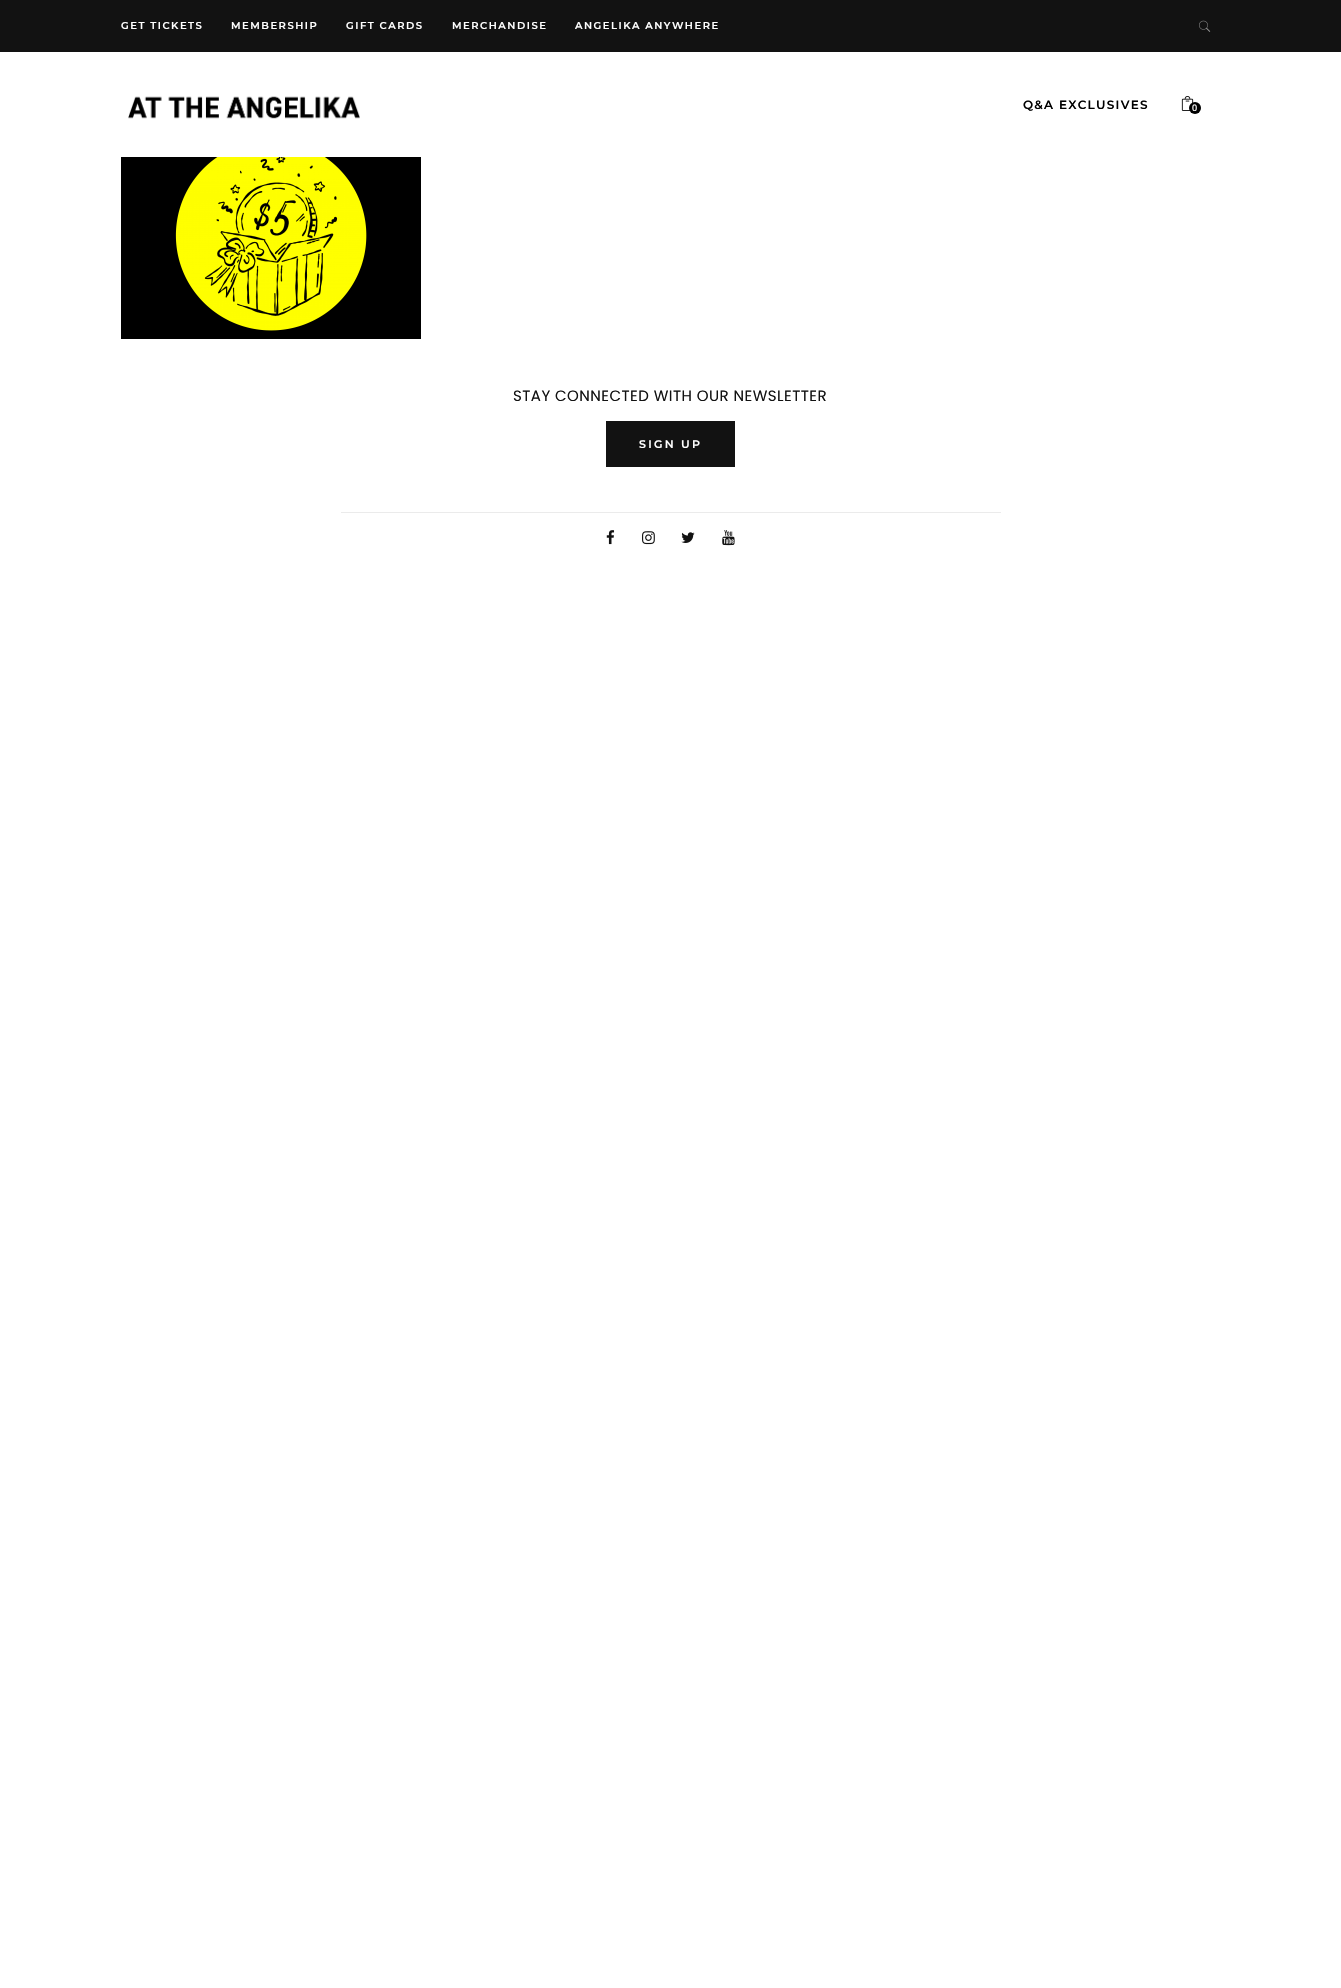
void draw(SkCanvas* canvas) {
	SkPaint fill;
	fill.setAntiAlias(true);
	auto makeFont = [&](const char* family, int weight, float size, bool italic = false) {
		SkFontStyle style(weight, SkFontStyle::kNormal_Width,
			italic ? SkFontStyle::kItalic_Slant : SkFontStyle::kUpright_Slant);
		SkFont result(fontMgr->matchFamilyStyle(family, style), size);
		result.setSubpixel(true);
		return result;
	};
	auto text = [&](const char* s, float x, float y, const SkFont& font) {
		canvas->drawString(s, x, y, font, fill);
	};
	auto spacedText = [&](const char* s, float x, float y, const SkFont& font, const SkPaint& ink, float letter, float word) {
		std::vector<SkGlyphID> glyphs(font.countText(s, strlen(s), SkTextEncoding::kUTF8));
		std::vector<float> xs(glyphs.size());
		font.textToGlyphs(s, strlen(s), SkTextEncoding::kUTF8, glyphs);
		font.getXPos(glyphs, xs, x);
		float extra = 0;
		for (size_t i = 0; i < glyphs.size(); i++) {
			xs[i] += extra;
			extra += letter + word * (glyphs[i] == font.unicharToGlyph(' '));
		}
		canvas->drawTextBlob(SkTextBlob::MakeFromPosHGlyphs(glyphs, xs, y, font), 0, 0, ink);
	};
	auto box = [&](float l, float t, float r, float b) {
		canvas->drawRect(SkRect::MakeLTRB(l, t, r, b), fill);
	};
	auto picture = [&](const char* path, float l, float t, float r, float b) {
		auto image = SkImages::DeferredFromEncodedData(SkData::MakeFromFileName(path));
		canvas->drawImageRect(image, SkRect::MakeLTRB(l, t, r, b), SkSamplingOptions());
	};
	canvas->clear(0xFFFFFFFF);
	fill.setColor(0xFF121212);
	box(0, 0, 1341, 52);
	picture("image0.png", 1199, 20, 1211, 32);
	picture("image1.png", 128, 96, 360, 119);
	picture("image2.png", 1181, 96, 1194, 111);
	fill.setColor(0xFF000000);
	canvas->drawCircle(1195, 108, 6, fill);
	picture("image3.png", 121, 157, 421, 339);
	fill.setColor(0xFF121212);
	box(606, 421, 735, 467);
	fill.setColor(0xFFEBEBEB);
	box(341, 512, 1001, 513);
	picture("image4.png", 606, 530, 615, 545);
	picture("image5.png", 642, 531, 655, 545);
	picture("image6.png", 681, 532, 695, 543);
	picture("image7.png", 722, 530, 735, 546);
	auto font1 = makeFont("Montserrat", 600, 10);
	fill.setColor(0xFFFFFFFF);
	spacedText("GET TICKETS", 121, 29, font1, fill, 1.5f, 0);
	spacedText("MEMBERSHIP", 231, 29, font1, fill, 1.5f, 0);
	spacedText("GIFT CARDS", 346, 29, font1, fill, 1.5f, 0);
	spacedText("MERCHANDISE", 452, 29, font1, fill, 1.5f, 0);
	spacedText("ANGELIKA ANYWHERE", 575, 29, font1, fill, 1.5f, 0);
	auto font2 = makeFont("Montserrat", 600, 12);
	fill.setColor(0xFF000000);
	spacedText("Q&A EXCLUSIVES", 1023, 109, font2, fill, 1.25f, 0);
	auto font3 = makeFont("Open Sans", 500, 9);
	fill.setColor(0xFFFFFFFF);
	text("0", 1192, 111, font3);
	auto font4 = makeFont("Poppins", 400, 15);
	fill.setColor(0xFF121212);
	spacedText("STAY CONNECTED WITH OUR NEWSLETTER", 513, 401, font4, fill, 0.45f, 0);
	auto font5 = makeFont("Montserrat", 600, 11);
	fill.setColor(0xFFFFFFFF);
	spacedText("SIGN UP", 639, 448, font5, fill, 2.25f, 0);
}
